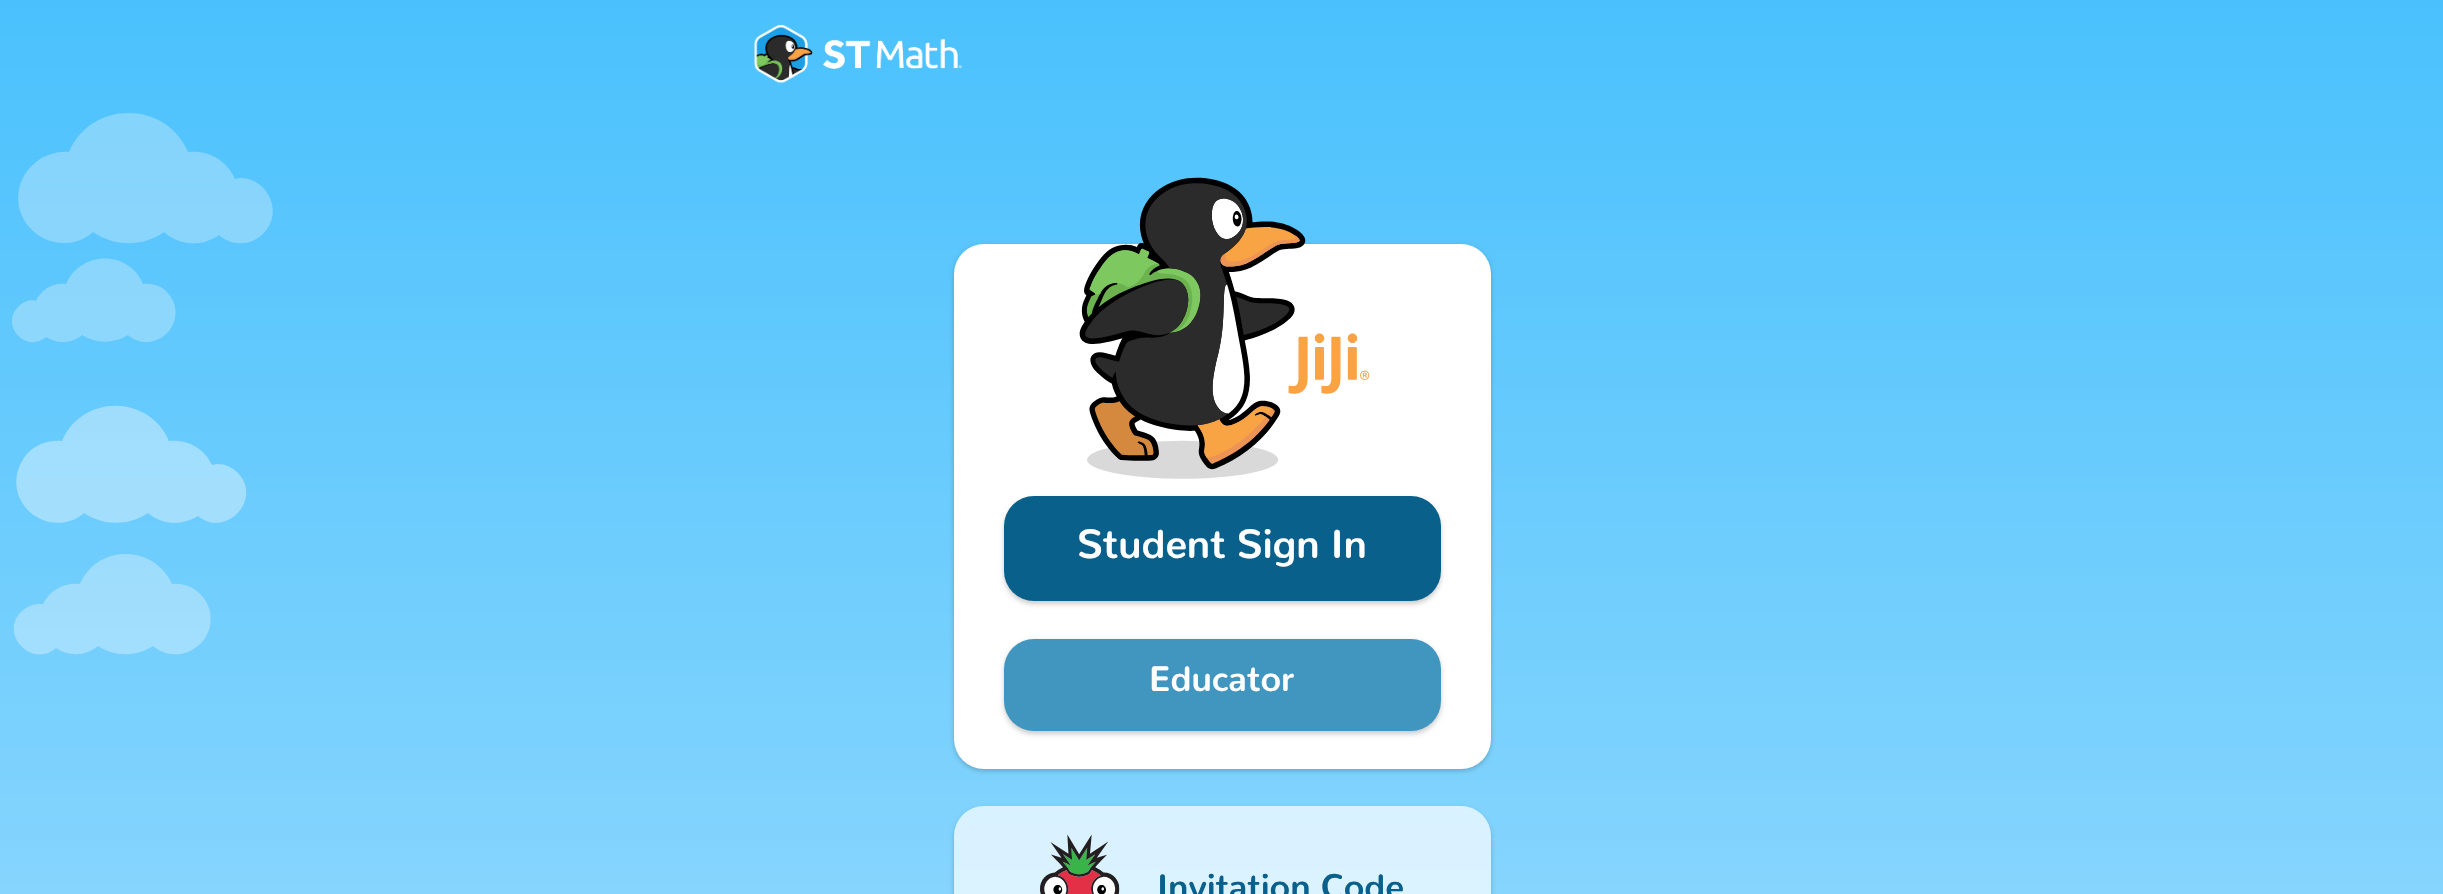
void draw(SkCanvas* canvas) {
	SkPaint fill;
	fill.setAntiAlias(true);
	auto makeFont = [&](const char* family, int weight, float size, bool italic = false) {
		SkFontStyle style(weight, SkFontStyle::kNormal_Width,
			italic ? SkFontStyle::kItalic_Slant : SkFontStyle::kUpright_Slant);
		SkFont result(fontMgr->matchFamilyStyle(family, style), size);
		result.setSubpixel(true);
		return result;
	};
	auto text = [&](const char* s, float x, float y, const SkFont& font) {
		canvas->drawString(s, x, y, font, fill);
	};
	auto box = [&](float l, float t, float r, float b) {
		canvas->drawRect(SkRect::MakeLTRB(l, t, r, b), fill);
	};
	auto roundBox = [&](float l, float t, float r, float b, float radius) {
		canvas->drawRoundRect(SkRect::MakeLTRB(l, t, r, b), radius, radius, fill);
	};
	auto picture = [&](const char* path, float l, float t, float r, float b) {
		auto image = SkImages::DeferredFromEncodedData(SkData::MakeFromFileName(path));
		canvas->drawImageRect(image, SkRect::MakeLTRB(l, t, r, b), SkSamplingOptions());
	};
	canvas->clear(0xFFFFFFFF);
	{
		const SkColor colors[] = {0xFF4AC1FD, 0xFFB6E5FE};
		const float stops[] = {0, 1};
		const SkPoint ends[] = {{1222, 0}, {1222, 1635}};
		fill.setShader(SkGradientShader::MakeLinear(ends, colors, stops, 2, SkTileMode::kClamp));
		fill.setAlpha(255);
	}
	box(0, 0, 2443, 894);
	picture("image0.png", 753, 24, 962, 83);
	fill.setShader(nullptr);
	fill.setColor(0x4DF7FAFC);
	canvas->drawPath(SkPathBuilder().moveTo(240, 178).lineTo(235, 179).cubicTo(227, 160, 208, 150, 188, 152).cubicTo(166, 100, 91, 100, 69, 152).cubicTo(57, 151, 44, 155, 35, 163).cubicTo(27, 169, 21, 179, 19, 189).cubicTo(11, 231, 61, 260, 93, 232).cubicTo(115, 247, 143, 247, 164, 232).cubicTo(180, 246, 202, 247, 219, 235).cubicTo(230, 245, 246, 246, 258, 238).cubicTo(270, 230, 276, 215, 271, 201).cubicTo(267, 188, 255, 178, 240, 178).close().detach(), fill);
	canvas->drawPath(SkPathBuilder().moveTo(33, 300).lineTo(36, 301).cubicTo(41, 289, 54, 282, 66, 284).cubicTo(81, 250, 129, 250, 143, 284).cubicTo(151, 283, 159, 285, 165, 290).cubicTo(170, 295, 174, 301, 175, 307).cubicTo(180, 334, 148, 353, 128, 335).cubicTo(114, 344, 96, 344, 82, 335).cubicTo(72, 344, 57, 344, 46, 337).cubicTo(26, 354, 0, 325, 18, 307).cubicTo(22, 303, 27, 300, 33, 300).close().detach(), fill);
	fill.setColor(0x66F7FAFC);
	canvas->drawPath(SkPathBuilder().moveTo(217, 464).lineTo(212, 465).cubicTo(204, 448, 187, 439, 169, 441).cubicTo(149, 394, 82, 394, 62, 441).cubicTo(51, 440, 40, 443, 31, 450).cubicTo(24, 456, 19, 465, 17, 474).cubicTo(10, 512, 55, 538, 84, 513).cubicTo(103, 526, 129, 526, 148, 513).cubicTo(162, 525, 182, 526, 198, 516).cubicTo(226, 539, 263, 499, 238, 473).cubicTo(232, 467, 225, 464, 217, 464).close().detach(), fill);
	fill.setColor(0x59F7FAFC);
	canvas->drawPath(SkPathBuilder().moveTo(39, 604).lineTo(43, 604).cubicTo(50, 590, 65, 582, 80, 584).cubicTo(97, 544, 154, 544, 172, 584).cubicTo(181, 583, 191, 586, 198, 592).cubicTo(204, 597, 209, 605, 210, 612).cubicTo(216, 645, 178, 667, 153, 646).cubicTo(136, 657, 115, 657, 98, 646).cubicTo(86, 656, 69, 657, 56, 648).cubicTo(32, 669, -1, 634, 21, 612).cubicTo(26, 607, 33, 604, 39, 604).close().detach(), fill);
	fill.setColor(0x33000000);
	fill.setMaskFilter(SkMaskFilter::MakeBlur(kNormal_SkBlurStyle, 2.5f));
	canvas->drawRoundRect(SkRect::MakeLTRB(954, 246, 1491, 771), 30, 30, fill);
	fill.setMaskFilter(nullptr);
	fill.setColor(0xFFFFFFFF);
	roundBox(954, 244, 1491, 769, 30);
	picture("image1.png", 1079, 177, 1370, 479);
	fill.setColor(0x33000000);
	fill.setMaskFilter(SkMaskFilter::MakeBlur(kNormal_SkBlurStyle, 2.5f));
	canvas->drawRoundRect(SkRect::MakeLTRB(1004, 499, 1441, 604), 30, 30, fill);
	fill.setMaskFilter(nullptr);
	fill.setColor(0xFF09608B);
	roundBox(1004, 496, 1441, 601, 30);
	fill.setColor(0x33000000);
	fill.setMaskFilter(SkMaskFilter::MakeBlur(kNormal_SkBlurStyle, 2.5f));
	canvas->drawRoundRect(SkRect::MakeLTRB(1004, 641, 1441, 734), 30, 30, fill);
	fill.setMaskFilter(nullptr);
	fill.setColor(0xFF4196C0);
	roundBox(1004, 639, 1441, 731, 30);
	canvas->save();
	canvas->clipPath(SkPathBuilder(SkPathFillType::kEvenOdd).moveTo(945, 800).lineTo(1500, 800).lineTo(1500, 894).lineTo(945, 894).close().moveTo(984, 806).lineTo(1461, 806).cubicTo(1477.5f, 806, 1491, 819.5f, 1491, 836).lineTo(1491, 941).cubicTo(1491, 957.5f, 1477.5f, 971, 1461, 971).lineTo(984, 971).cubicTo(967.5f, 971, 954, 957.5f, 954, 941).lineTo(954, 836).cubicTo(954, 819.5f, 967.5f, 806, 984, 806).close().detach(), true);
	fill.setColor(0x33000000);
	fill.setMaskFilter(SkMaskFilter::MakeBlur(kNormal_SkBlurStyle, 2.5f));
	canvas->drawRoundRect(SkRect::MakeLTRB(954, 809, 1491, 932), 30, 30, fill);
	fill.setMaskFilter(nullptr);
	canvas->restore();
	fill.setColor(0xB3FFFFFF);
	roundBox(954, 806, 1491, 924, 30);
	picture("image2.png", 1040, 834, 1120, 894);
	auto font1 = makeFont("Nunito", 700, 40);
	fill.setColor(0xFFFFFFFF);
	text("Student Sign In", 1077, 558, font1);
	auto font2 = makeFont("Nunito", 700, 35);
	text("Educator", 1149, 691, font2);
	fill.setColor(0xFF09608B);
	text("Invitation Code", 1157, 899, font2);
}
